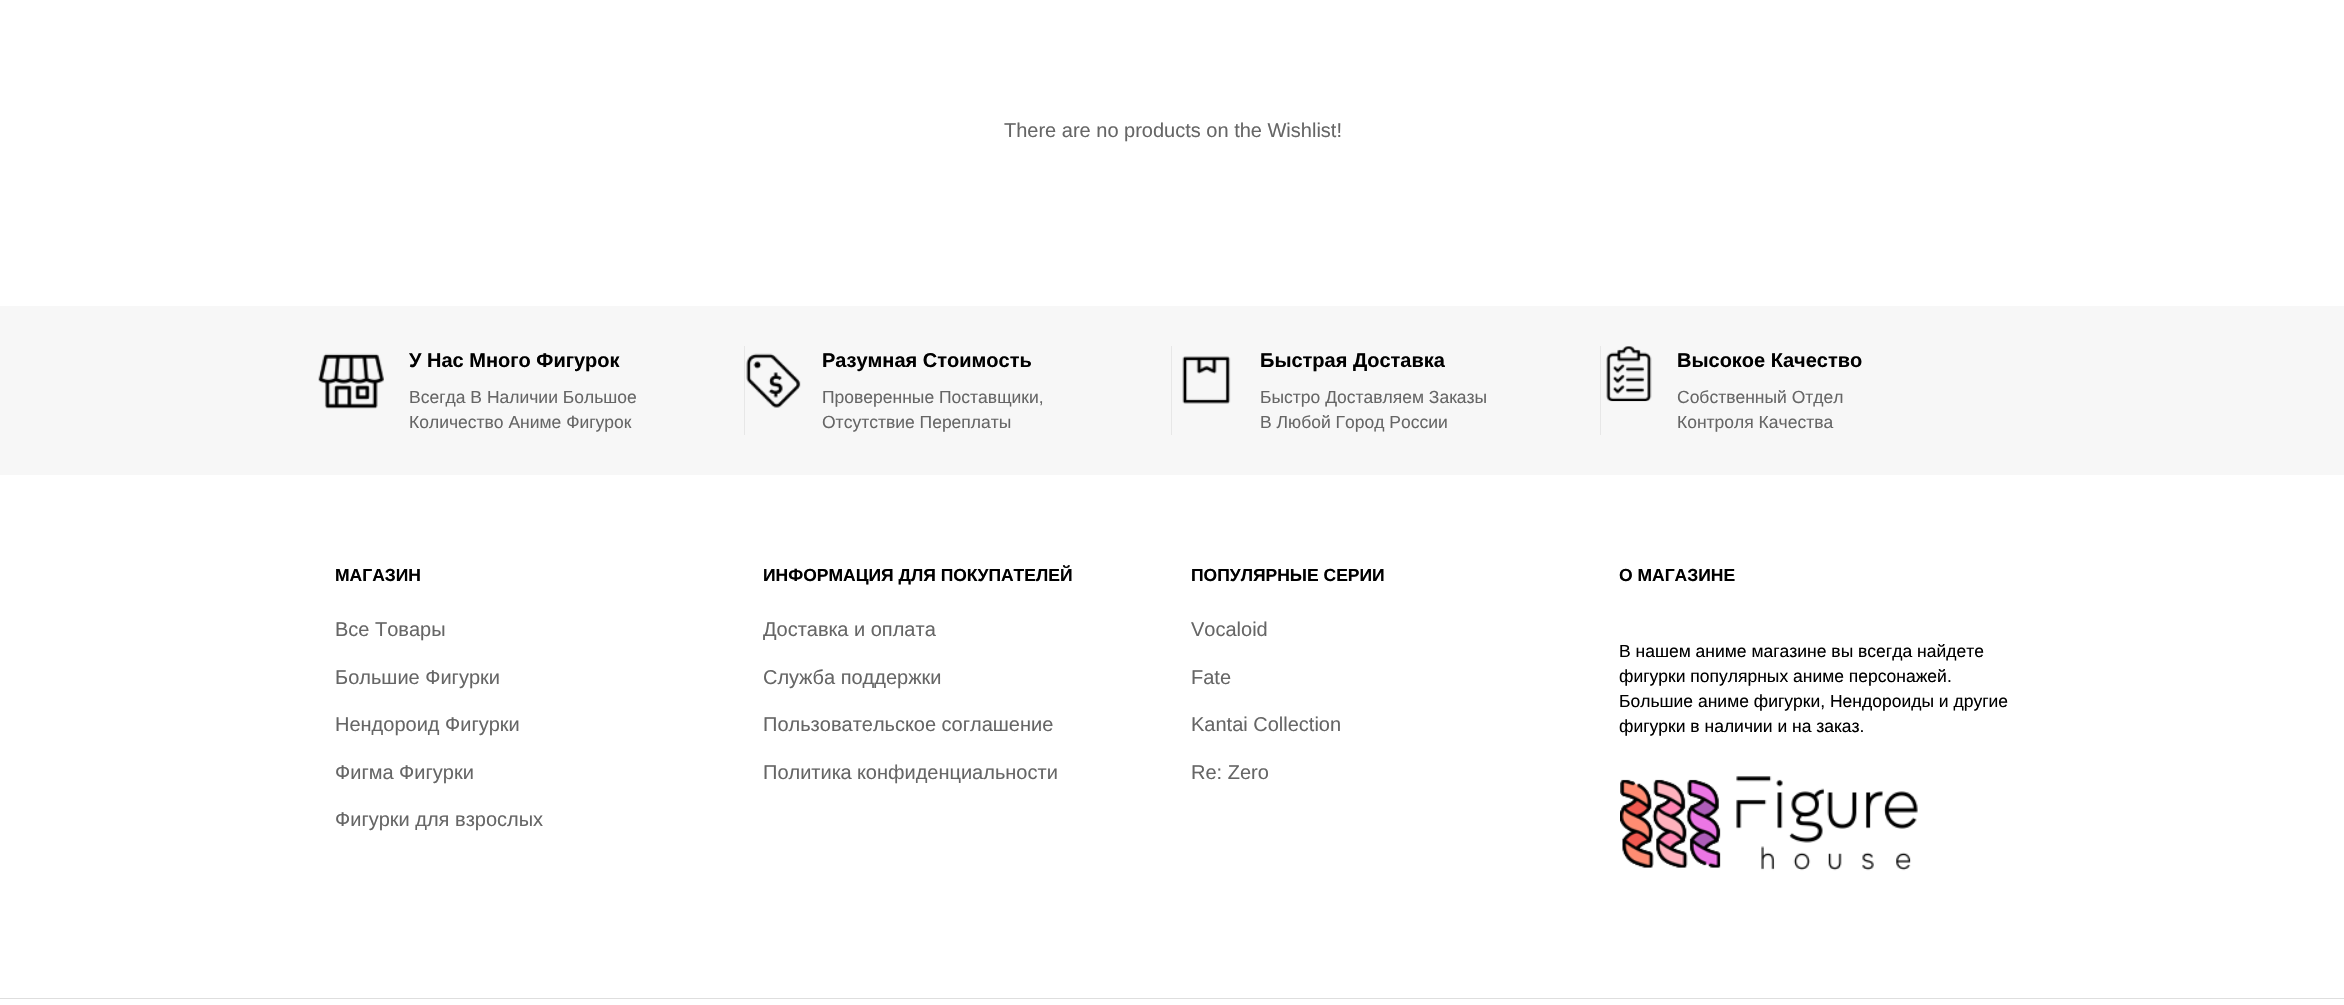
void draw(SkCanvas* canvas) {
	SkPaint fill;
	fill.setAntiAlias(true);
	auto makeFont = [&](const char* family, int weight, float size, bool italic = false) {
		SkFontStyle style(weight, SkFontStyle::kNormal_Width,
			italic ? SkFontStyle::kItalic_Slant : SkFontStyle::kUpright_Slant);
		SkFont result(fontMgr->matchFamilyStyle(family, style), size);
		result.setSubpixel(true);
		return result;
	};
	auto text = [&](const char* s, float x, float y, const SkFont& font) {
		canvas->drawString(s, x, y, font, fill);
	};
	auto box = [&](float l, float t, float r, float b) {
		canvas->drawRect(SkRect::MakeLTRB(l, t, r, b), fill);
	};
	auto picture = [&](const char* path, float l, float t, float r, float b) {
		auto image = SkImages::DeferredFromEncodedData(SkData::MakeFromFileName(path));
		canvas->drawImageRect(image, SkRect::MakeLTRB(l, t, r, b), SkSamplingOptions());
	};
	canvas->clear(0xFFFFFFFF);
	fill.setColor(0xFFF7F7F7);
	box(0, 306, 2344, 475);
	fill.setColor(0xFFE7E7E7);
	box(744, 346, 745, 435);
	picture("image0.png", 318, 353, 384, 409);
	box(1171, 346, 1172, 435);
	picture("image1.png", 746, 353, 801, 408);
	box(1600, 346, 1601, 435);
	picture("image2.png", 1182, 356, 1231, 404);
	picture("image3.png", 1606, 346, 1652, 402);
	picture("image4.png", 1620, 776, 1918, 871);
	fill.setColor(0xFFDEDEDE);
	box(0, 998, 2344, 999);
	auto font1 = makeFont("Liberation Sans", 400, 20);
	fill.setColor(0xFF666666);
	text("There are no products on the Wishlist!", 1004, 137, font1);
	auto font2 = makeFont("Liberation Sans", 700, 20);
	fill.setColor(0xFF000000);
	text("У Нас Много Фигурок", 409, 367, font2);
	auto font3 = makeFont("Liberation Sans", 400, 17.5f);
	fill.setColor(0xFF666666);
	text("Всегда В Наличии Большое", 409, 403, font3);
	text("Количество Аниме Фигурок", 409, 428, font3);
	fill.setColor(0xFF000000);
	text("Разумная Стоимость", 822, 367, font2);
	fill.setColor(0xFF666666);
	text("Проверенные Поставщики,", 822, 403, font3);
	text("Отсутствие Переплаты", 822, 428, font3);
	fill.setColor(0xFF000000);
	text("Быстрая Доставка", 1260, 367, font2);
	fill.setColor(0xFF666666);
	text("Быстро Доставляем Заказы", 1260, 403, font3);
	text("В Любой Город России", 1260, 428, font3);
	fill.setColor(0xFF000000);
	text("Высокое Качество", 1677, 367, font2);
	fill.setColor(0xFF666666);
	text("Собственный Отдел", 1677, 403, font3);
	text("Контроля Качества", 1677, 428, font3);
	auto font4 = makeFont("Liberation Sans", 700, 17.5f);
	fill.setColor(0xFF000000);
	text("МАГАЗИН", 335, 581, font4);
	fill.setColor(0xFF666666);
	text("Все Товары", 335, 636, font1);
	text("Большие Фигурки", 335, 684, font1);
	text("Нендороид Фигурки", 335, 731, font1);
	text("Фигма Фигурки", 335, 779, font1);
	text("Фигурки для взрослых", 335, 826, font1);
	fill.setColor(0xFF000000);
	text("ИНФОРМАЦИЯ ДЛЯ ПОКУПАТЕЛЕЙ", 763, 581, font4);
	fill.setColor(0xFF666666);
	text("Доставка и оплата", 763, 636, font1);
	text("Служба поддержки", 763, 684, font1);
	text("Пользовательское соглашение", 763, 731, font1);
	text("Политика конфиденциальности", 763, 779, font1);
	fill.setColor(0xFF000000);
	text("ПОПУЛЯРНЫЕ СЕРИИ", 1191, 581, font4);
	fill.setColor(0xFF666666);
	text("Vocaloid", 1191, 636, font1);
	text("Fate", 1191, 684, font1);
	text("Kantai Collection", 1191, 731, font1);
	text("Re: Zero", 1191, 779, font1);
	fill.setColor(0xFF000000);
	text("О МАГАЗИНЕ", 1619, 581, font4);
	text("В нашем аниме магазине вы всегда найдете", 1619, 657, font3);
	text("фигурки популярных аниме персонажей.", 1619, 682, font3);
	text("Большие аниме фигурки, Нендороиды и другие", 1619, 707, font3);
	text("фигурки в наличии и на заказ.", 1619, 732, font3);
}
